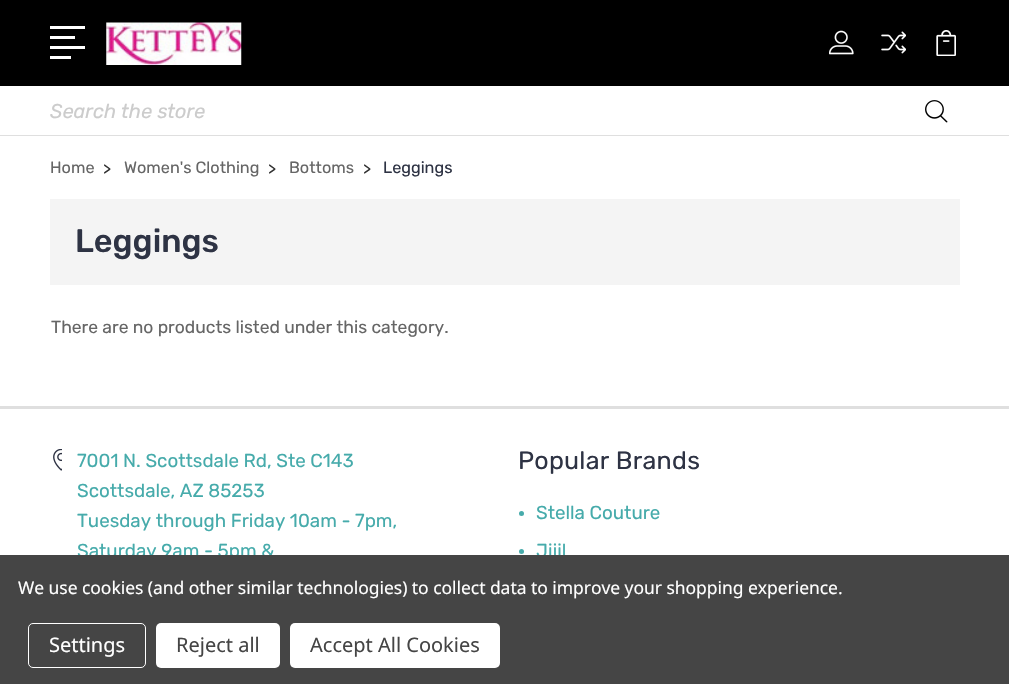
void draw(SkCanvas* canvas) {
	SkPaint fill;
	fill.setAntiAlias(true);
	auto makeFont = [&](const char* family, int weight, float size, bool italic = false) {
		SkFontStyle style(weight, SkFontStyle::kNormal_Width,
			italic ? SkFontStyle::kItalic_Slant : SkFontStyle::kUpright_Slant);
		SkFont result(fontMgr->matchFamilyStyle(family, style), size);
		result.setSubpixel(true);
		return result;
	};
	auto text = [&](const char* s, float x, float y, const SkFont& font) {
		canvas->drawString(s, x, y, font, fill);
	};
	auto spacedText = [&](const char* s, float x, float y, const SkFont& font, const SkPaint& ink, float letter, float word) {
		std::vector<SkGlyphID> glyphs(font.countText(s, strlen(s), SkTextEncoding::kUTF8));
		std::vector<float> xs(glyphs.size());
		font.textToGlyphs(s, strlen(s), SkTextEncoding::kUTF8, glyphs);
		font.getXPos(glyphs, xs, x);
		float extra = 0;
		for (size_t i = 0; i < glyphs.size(); i++) {
			xs[i] += extra;
			extra += letter + word * (glyphs[i] == font.unicharToGlyph(' '));
		}
		canvas->drawTextBlob(SkTextBlob::MakeFromPosHGlyphs(glyphs, xs, y, font), 0, 0, ink);
	};
	auto box = [&](float l, float t, float r, float b) {
		canvas->drawRect(SkRect::MakeLTRB(l, t, r, b), fill);
	};
	auto roundBox = [&](float l, float t, float r, float b, float radius) {
		canvas->drawRoundRect(SkRect::MakeLTRB(l, t, r, b), radius, radius, fill);
	};
	auto picture = [&](const char* path, float l, float t, float r, float b) {
		auto image = SkImages::DeferredFromEncodedData(SkData::MakeFromFileName(path));
		canvas->drawImageRect(image, SkRect::MakeLTRB(l, t, r, b), SkSamplingOptions());
	};
	canvas->clear(0xFFFFFFFF);
	fill.setColor(0xFF000000);
	box(0, 0, 1009, 86);
	fill.setColor(0xFFFFFFFF);
	box(50, 26, 85, 29);
	box(50, 36, 75, 39);
	box(50, 46, 85, 49);
	box(50, 56, 71, 59);
	picture("image0.png", 106, 22, 242, 65);
	picture("image1.png", 829, 30, 854, 55);
	picture("image2.png", 881, 31, 906, 54);
	picture("image3.png", 936, 30, 956, 56);
	fill.setColor(0xFFDFDFDF);
	box(0, 135, 1009, 136);
	picture("image4.png", 925, 100, 948, 123);
	fill.setColor(0xFFF4F4F4);
	box(50, 199, 960, 285);
	fill.setColor(0xFFDFDFDF);
	box(0, 406, 1009, 409);
	picture("image5.png", 53, 449, 62, 471);
	fill.setColor(0xFF46ABAB);
	canvas->drawCircle(521.5f, 513.5f, 2.5f, fill);
	canvas->drawCircle(521.5f, 551.5f, 2.5f, fill);
	auto font1 = makeFont("Rubik", 400, 20, true);
	fill.setColor(0xFFCCCCCC);
	text("Search the store", 50, 118, font1);
	auto font2 = makeFont("Rubik", 400, 16.25f);
	fill.setColor(0xFF666666);
	text("Home", 50, 173, font2);
	fill.setColor(0xFF333333);
	text(">", 103, 174, font2);
	fill.setColor(0xFF666666);
	text("Women's Clothing", 124, 173, font2);
	fill.setColor(0xFF333333);
	text(">", 268, 174, font2);
	fill.setColor(0xFF666666);
	text("Bottoms", 289, 173, font2);
	fill.setColor(0xFF333333);
	text(">", 363, 174, font2);
	fill.setColor(0xFF2E3344);
	text("Leggings", 383, 173, font2);
	auto font3 = makeFont("Rubik", 500, 32.5f);
	text("Leggings", 75, 252, font3);
	auto font4 = makeFont("Rubik", 400, 17.5f);
	fill.setColor(0xFF666666);
	text("There are no products listed under this category.", 51, 333, font4);
	auto font5 = makeFont("Rubik", 400, 18.75f);
	fill.setColor(0xFF46ABAB);
	text("7001 N. Scottsdale Rd, Ste C143", 77, 467, font5);
	text("Scottsdale, AZ 85253", 77, 497, font5);
	text("Tuesday through Friday 10am - 7pm,", 77, 527, font5);
	text("Saturday 9am - 5pm &", 77, 557, font5);
	auto font6 = makeFont("Rubik", 400, 25);
	fill.setColor(0xFF2E3344);
	spacedText("Popular Brands", 518, 469, font6, fill, 0.25f, 0);
	fill.setColor(0xFF46ABAB);
	text("Stella Couture", 536, 519, font5);
	text("Jijil", 536, 557, font5);
	fill.setColor(0xFF454545);
	box(0, 555, 1009, 684);
	auto font7 = makeFont("Noto Sans", 400, 17.5f);
	fill.setColor(0xFFFFFFFF);
	spacedText("We use cookies (and other similar technologies) to collect data to improve your shopping experience.", 18, 594, font7, fill, -0.05f, 0);
	fill.setStyle(SkPaint::kStroke_Style);
	fill.setStrokeWidth(1);
	canvas->drawRoundRect(SkRect::MakeLTRB(28.5f, 623.5f, 145.5f, 667.5f), 4.5f, 4.5f, fill);
	auto font8 = makeFont("Noto Sans", 400, 20);
	fill.setStyle(SkPaint::kFill_Style);
	text("Settings", 49, 652, font8);
	roundBox(156, 623, 280, 668, 5);
	fill.setColor(0xFF454545);
	text("Reject all", 176, 652, font8);
	fill.setColor(0xFFFFFFFF);
	roundBox(290, 623, 500, 668, 5);
	fill.setColor(0xFF454545);
	text("Accept All Cookies", 310, 652, font8);
}
